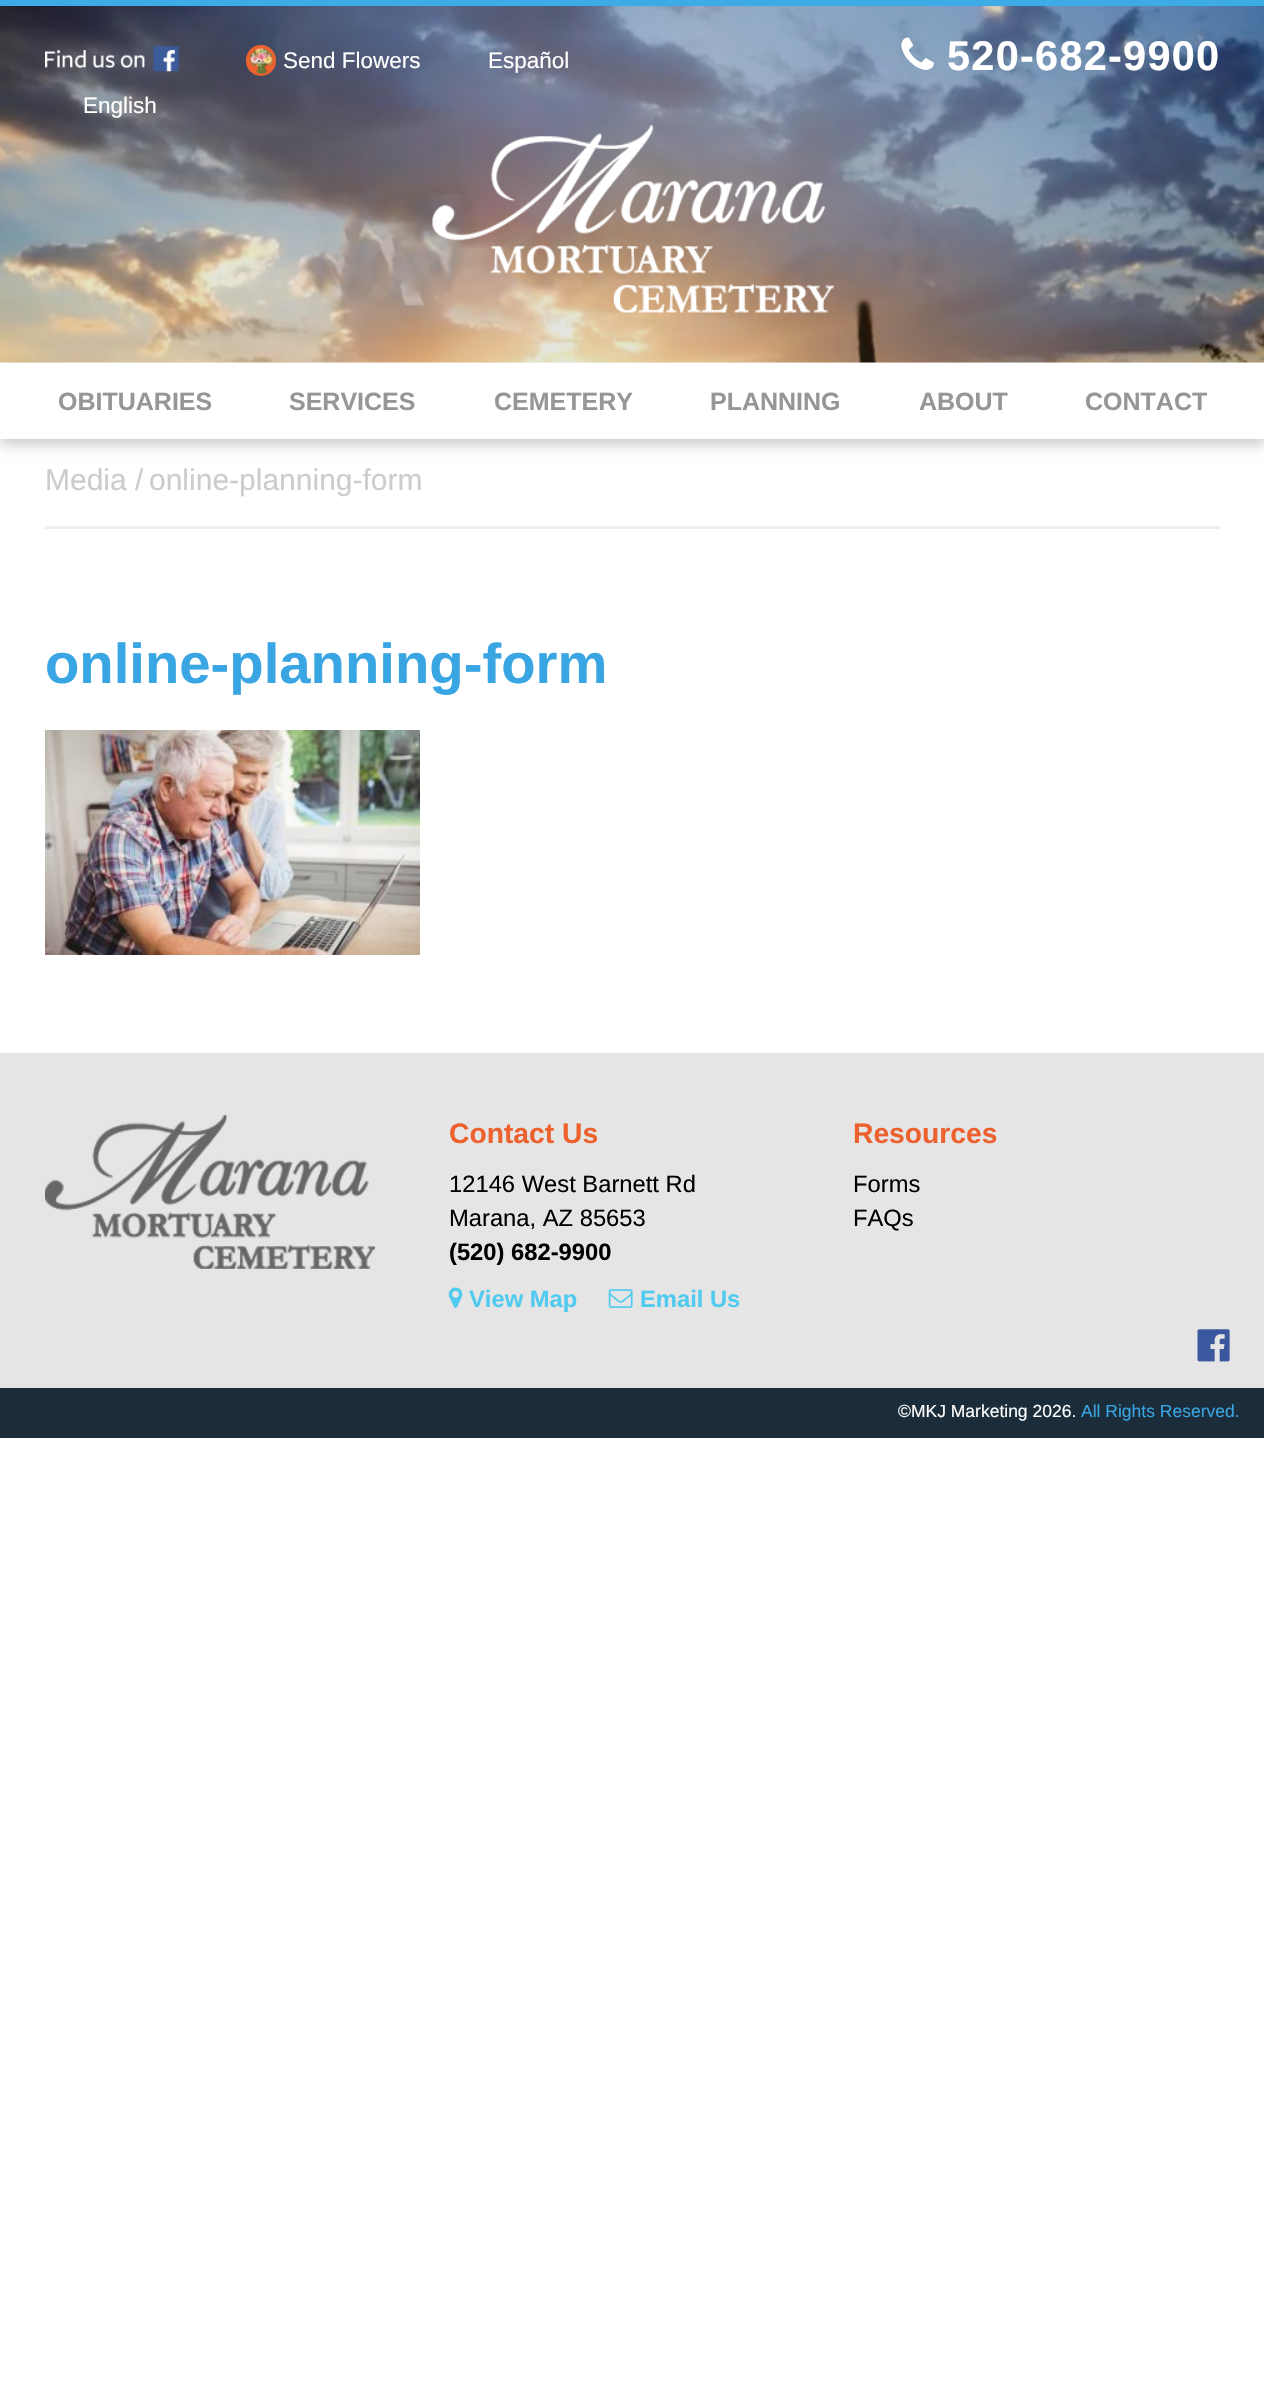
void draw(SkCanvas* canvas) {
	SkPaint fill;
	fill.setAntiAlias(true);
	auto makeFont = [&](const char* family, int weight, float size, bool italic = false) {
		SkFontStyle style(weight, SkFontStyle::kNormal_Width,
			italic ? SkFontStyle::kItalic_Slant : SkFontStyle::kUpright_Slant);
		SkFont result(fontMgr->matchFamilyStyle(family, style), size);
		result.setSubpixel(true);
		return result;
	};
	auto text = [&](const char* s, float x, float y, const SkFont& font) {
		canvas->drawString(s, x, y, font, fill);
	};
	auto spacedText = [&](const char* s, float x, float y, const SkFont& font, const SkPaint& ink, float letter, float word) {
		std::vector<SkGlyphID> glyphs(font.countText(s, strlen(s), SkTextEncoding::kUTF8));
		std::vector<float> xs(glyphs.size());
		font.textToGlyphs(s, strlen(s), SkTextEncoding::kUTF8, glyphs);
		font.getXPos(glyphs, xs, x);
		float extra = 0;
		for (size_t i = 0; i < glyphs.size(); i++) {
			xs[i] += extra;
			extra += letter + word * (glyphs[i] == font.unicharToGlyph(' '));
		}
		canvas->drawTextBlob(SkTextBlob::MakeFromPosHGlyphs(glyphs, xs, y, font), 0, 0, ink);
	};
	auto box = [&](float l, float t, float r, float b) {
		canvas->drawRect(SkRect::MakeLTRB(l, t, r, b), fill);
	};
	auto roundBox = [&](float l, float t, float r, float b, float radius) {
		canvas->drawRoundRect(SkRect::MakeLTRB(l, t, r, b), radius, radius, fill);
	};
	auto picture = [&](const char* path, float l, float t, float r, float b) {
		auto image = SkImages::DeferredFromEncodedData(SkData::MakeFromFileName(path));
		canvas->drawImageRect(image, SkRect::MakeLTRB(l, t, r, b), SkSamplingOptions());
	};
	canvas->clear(0xFFFFFFFF);
	fill.setColor(0xFF3DABE5);
	box(0, 0, 1264, 6);
	fill.setColor(0xFFCCCCCC);
	fill.setMaskFilter(SkMaskFilter::MakeBlur(kNormal_SkBlurStyle, 6));
	canvas->drawRect(SkRect::MakeLTRB(0, 369, 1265, 445), fill);
	fill.setMaskFilter(nullptr);
	picture("image0.png", 0, 6, 1264, 363);
	picture("image1.png", 45, 46, 179, 72);
	fill.setColor(0xFFEC612D);
	roundBox(246, 45, 276, 76, 15);
	picture("image2.png", 249, 47, 274, 74);
	picture("image3.png", 901, 37, 934, 70);
	picture("image4.png", 432, 125, 834, 313);
	fill.setColor(0xFFFFFFFF);
	box(0, 363, 1264, 439);
	fill.setColor(0xFFEEEEEE);
	box(45, 526, 1220, 529);
	picture("image5.png", 45, 730, 420, 955);
	fill.setColor(0xFFE5E5E5);
	box(0, 1053, 1264, 1388);
	picture("image6.png", 45, 1115, 375, 1269);
	picture("image7.png", 448, 1287, 463, 1308);
	picture("image8.png", 608, 1289, 633, 1308);
	picture("image9.png", 1197, 1329, 1230, 1362);
	fill.setColor(0xFF1B2D3A);
	box(0, 1388, 1264, 1438);
	auto font1 = makeFont("Liberation Sans", 400, 22.5f);
	fill.setColor(0xFFFFFFFF);
	text("Send Flowers", 283, 68, font1);
	text("Español", 488, 68, font1);
	text("English", 83, 113, font1);
	auto font2 = makeFont("Liberation Sans", 700, 41.5f);
	spacedText("520-682-9900", 947, 70, font2, fill, 1.25f, 0);
	auto font3 = makeFont("Liberation Sans", 700, 25);
	fill.setColor(0xFF969696);
	text("OBITUARIES", 58, 410, font3);
	text("SERVICES", 289, 410, font3);
	text("CEMETERY", 494, 410, font3);
	text("PLANNING", 710, 410, font3);
	text("ABOUT", 919, 410, font3);
	text("CONTACT", 1085, 410, font3);
	auto font4 = makeFont("Liberation Sans", 400, 30);
	fill.setColor(0xFFCCCCCC);
	text("Media /", 45, 490, font4);
	text("online-planning-form", 149, 490, font4);
	auto font5 = makeFont("Liberation Sans", 700, 56.25f);
	fill.setColor(0xFF39A5E3);
	text("online-planning-form", 45, 683, font5);
	auto font6 = makeFont("Liberation Sans", 700, 28.25f);
	fill.setColor(0xFFEC612D);
	text("Contact Us", 449, 1143, font6);
	auto font7 = makeFont("Liberation Sans", 400, 23.75f);
	fill.setColor(0xFF000000);
	text("12146 West Barnett Rd", 449, 1192, font7);
	text("Marana, AZ 85653", 449, 1226, font7);
	auto font8 = makeFont("Liberation Sans", 700, 23.75f);
	text("(520) 682-9900", 449, 1260, font8);
	fill.setColor(0xFF50CAEF);
	text("View Map", 469, 1307, font8);
	text("Email Us", 640, 1307, font8);
	fill.setColor(0xFFEC612D);
	text("Resources", 853, 1143, font6);
	fill.setColor(0xFF000000);
	text("Forms", 853, 1192, font7);
	text("FAQs", 853, 1226, font7);
	auto font9 = makeFont("Liberation Sans", 400, 17.5f);
	fill.setColor(0xFFFFFFFF);
	text("©MKJ Marketing 2026.", 898, 1417, font9);
	fill.setColor(0xFF39A5E3);
	text("All Rights Reserved.", 1081, 1417, font9);
}
